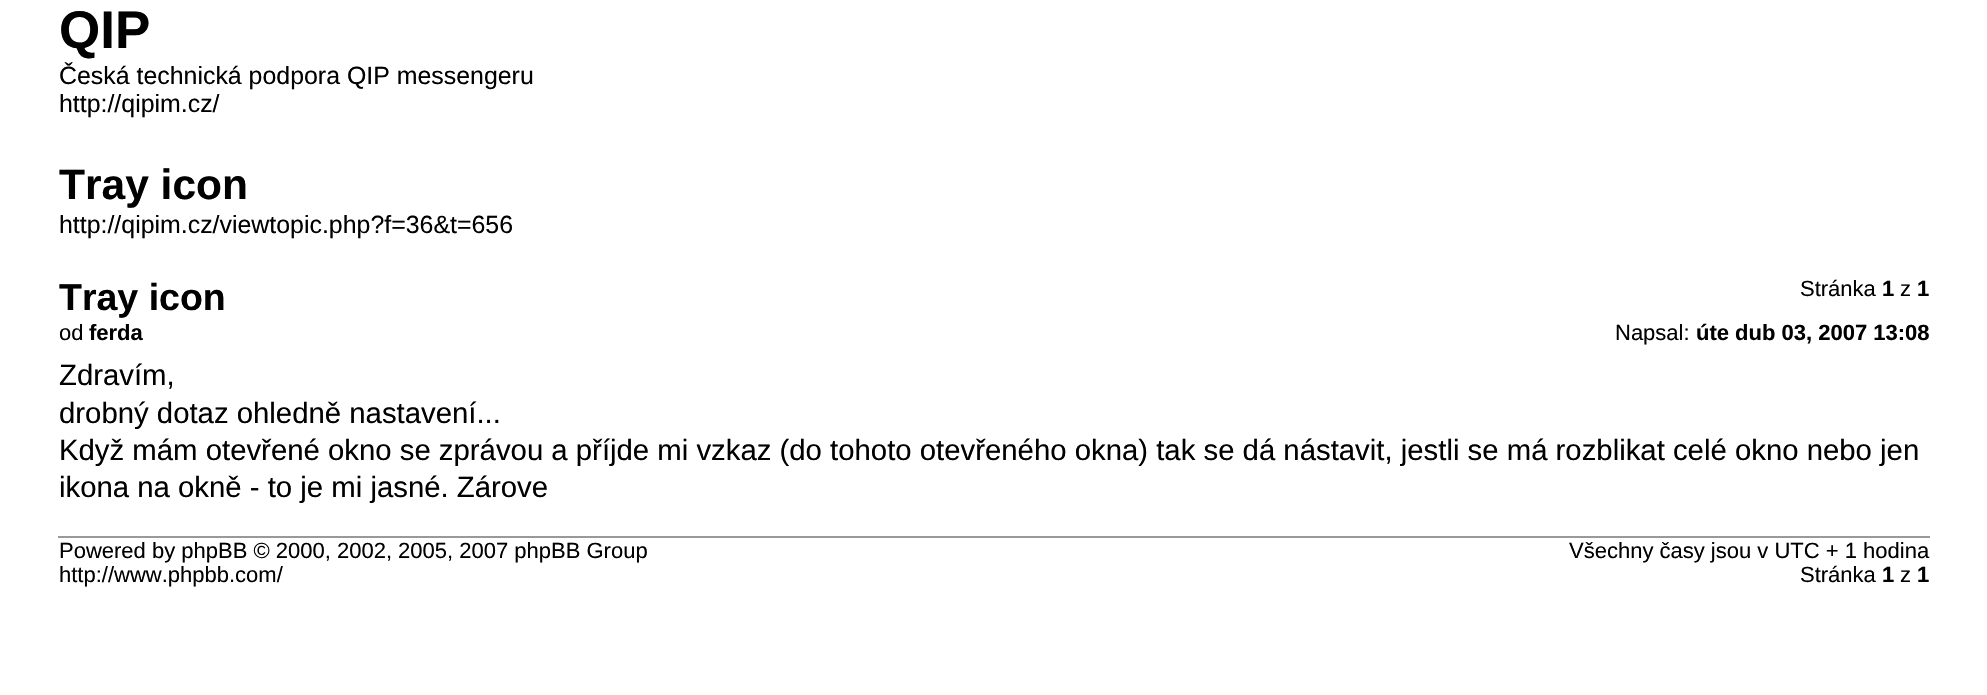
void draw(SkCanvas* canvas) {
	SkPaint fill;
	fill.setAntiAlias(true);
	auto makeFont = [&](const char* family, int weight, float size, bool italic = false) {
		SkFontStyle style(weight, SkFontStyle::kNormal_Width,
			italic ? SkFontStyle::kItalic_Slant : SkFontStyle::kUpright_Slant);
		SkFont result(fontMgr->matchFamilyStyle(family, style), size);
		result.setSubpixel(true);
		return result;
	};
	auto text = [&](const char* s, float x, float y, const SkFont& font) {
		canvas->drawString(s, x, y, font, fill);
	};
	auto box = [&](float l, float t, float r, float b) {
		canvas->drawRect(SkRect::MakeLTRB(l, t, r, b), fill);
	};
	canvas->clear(0xFFFFFFFF);
	fill.setColor(0xFF999999);
	box(58, 536, 1930, 538);
	auto font1 = makeFont("Liberation Sans", 700, 53);
	fill.setColor(0xFF000000);
	text("QIP", 59, 48, font1);
	auto font2 = makeFont("Liberation Sans", 400, 24.9f);
	text("Česká technická podpora QIP messengeru", 59, 84, font2);
	text("http://qipim.cz/", 59, 112, font2);
	auto font3 = makeFont("Liberation Sans", 700, 42.5f);
	text("Tray icon", 59, 199, font3);
	text("http://qipim.cz/viewtopic.php?f=36&t=656", 59, 233, font2);
	auto font4 = makeFont("Liberation Sans", 400, 22);
	text("Stránka", 1800, 296, font4);
	auto font5 = makeFont("Liberation Sans", 700, 22);
	text("1", 1882, 296, font5);
	text("z", 1900, 296, font4);
	text("1", 1917, 296, font5);
	auto font6 = makeFont("Liberation Sans", 700, 37.5f);
	text("Tray icon", 59, 310, font6);
	text("od", 59, 340, font4);
	text("ferda", 89, 340, font5);
	text("Napsal:", 1615, 340, font4);
	text("úte dub 03, 2007 13:08", 1696, 340, font5);
	auto font7 = makeFont("Liberation Sans", 400, 29.33f);
	text("Zdravím,", 59, 385, font7);
	text("drobný dotaz ohledně nastavení...", 59, 423, font7);
	text("Když mám otevřené okno se zprávou a příjde mi vzkaz (do tohoto otevřeného okna) tak se dá nástavit, jestli se má rozblikat celé okno nebo jen", 59, 460, font7);
	text("ikona na okně - to je mi jasné. Zárove", 59, 497, font7);
	text("Powered by phpBB © 2000, 2002, 2005, 2007 phpBB Group", 59, 558, font4);
	text("http://www.phpbb.com/", 59, 582, font4);
	text("Všechny časy jsou v UTC + 1 hodina", 1569, 558, font4);
	text("Stránka", 1800, 582, font4);
	text("1", 1882, 582, font5);
	text("z", 1900, 582, font4);
	text("1", 1917, 582, font5);
}
